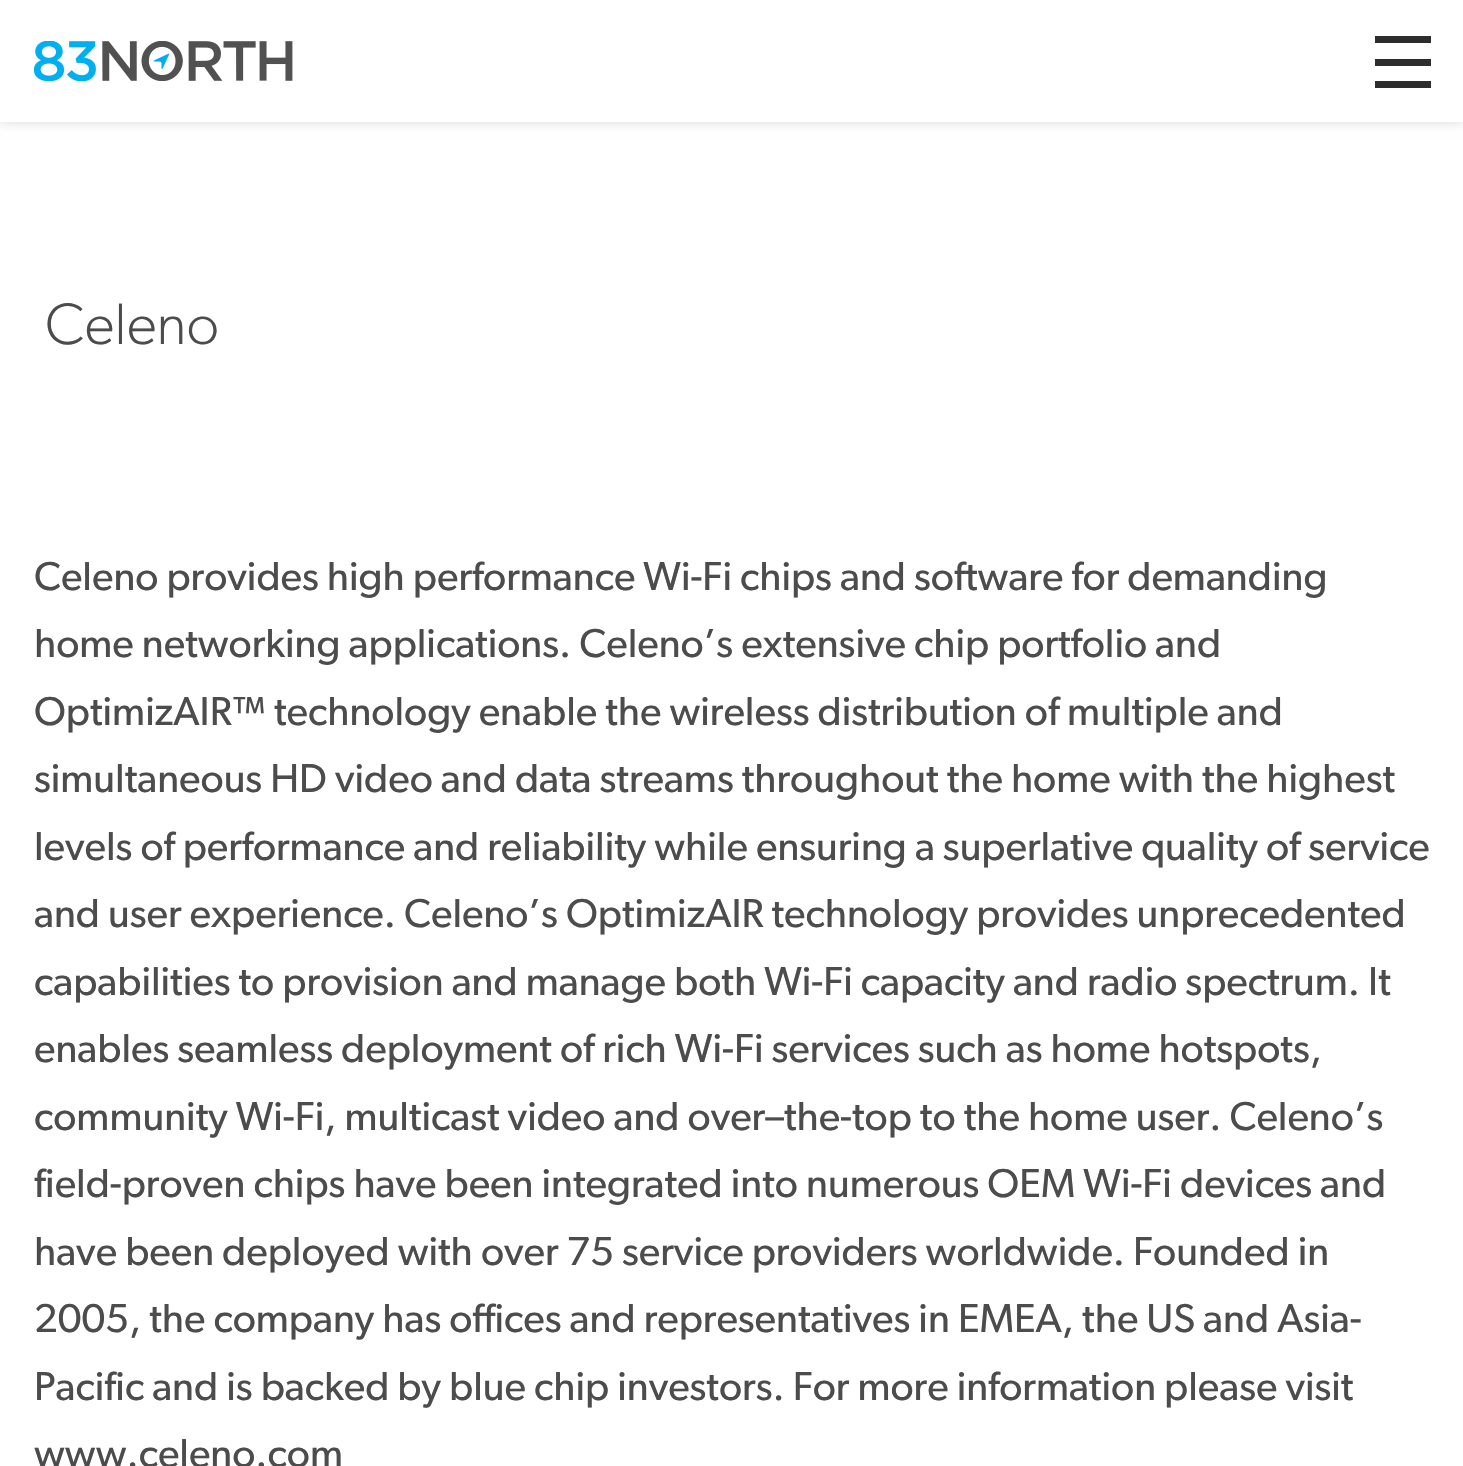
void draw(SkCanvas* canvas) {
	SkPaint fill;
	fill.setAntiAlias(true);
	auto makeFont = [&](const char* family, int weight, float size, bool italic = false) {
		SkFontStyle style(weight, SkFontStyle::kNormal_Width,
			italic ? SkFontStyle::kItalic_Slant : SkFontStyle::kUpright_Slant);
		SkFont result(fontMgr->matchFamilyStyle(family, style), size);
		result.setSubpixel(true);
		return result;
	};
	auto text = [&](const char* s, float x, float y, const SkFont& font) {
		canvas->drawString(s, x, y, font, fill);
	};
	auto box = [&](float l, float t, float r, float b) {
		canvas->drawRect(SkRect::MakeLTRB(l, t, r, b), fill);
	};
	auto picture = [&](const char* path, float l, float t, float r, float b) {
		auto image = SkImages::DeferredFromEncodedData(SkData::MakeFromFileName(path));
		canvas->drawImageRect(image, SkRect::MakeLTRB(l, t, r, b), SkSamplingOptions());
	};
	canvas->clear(0xFFFFFFFF);
	fill.setColor(0x26000000);
	fill.setMaskFilter(SkMaskFilter::MakeBlur(kNormal_SkBlurStyle, 5.5f));
	canvas->drawRect(SkRect::MakeLTRB(0, 0, 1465, 122), fill);
	fill.setMaskFilter(nullptr);
	fill.setColor(0xFFFFFFFF);
	box(0, 0, 1463, 122);
	picture("image0.png", 34, 41, 293, 81);
	fill.setColor(0xFF2D2D2D);
	box(1375, 36, 1431, 43);
	box(1375, 59, 1431, 66);
	box(1375, 81, 1431, 88);
	auto font1 = makeFont("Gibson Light", 300, 58.5f);
	fill.setColor(0xFF4C4C4C);
	text("Celeno", 45, 344, font1);
	auto font2 = makeFont("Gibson", 400, 40.5f);
	text("Celeno provides high performance Wi-Fi chips and software for demanding", 34, 590, font2);
	text("home networking applications. Celeno’s extensive chip portfolio and", 34, 657, font2);
	text("OptimizAIR™ technology enable the wireless distribution of multiple and", 34, 725, font2);
	text("simultaneous HD video and data streams throughout the home with the highest", 34, 792, font2);
	text("levels of performance and reliability while ensuring a superlative quality of service", 34, 860, font2);
	text("and user experience. Celeno’s OptimizAIR technology provides unprecedented", 34, 927, font2);
	text("capabilities to provision and manage both Wi-Fi capacity and radio spectrum. It", 34, 995, font2);
	text("enables seamless deployment of rich Wi-Fi services such as home hotspots,", 34, 1062, font2);
	text("community Wi-Fi, multicast video and over–the-top to the home user. Celeno’s", 34, 1130, font2);
	text("field-proven chips have been integrated into numerous OEM Wi-Fi devices and", 34, 1197, font2);
	text("have been deployed with over 75 service providers worldwide. Founded in", 34, 1265, font2);
	text("2005, the company has offices and representatives in EMEA, the US and Asia-", 34, 1332, font2);
	text("Pacific and is backed by blue chip investors. For more information please visit", 34, 1400, font2);
	text("www.celeno.com", 34, 1467, font2);
}
